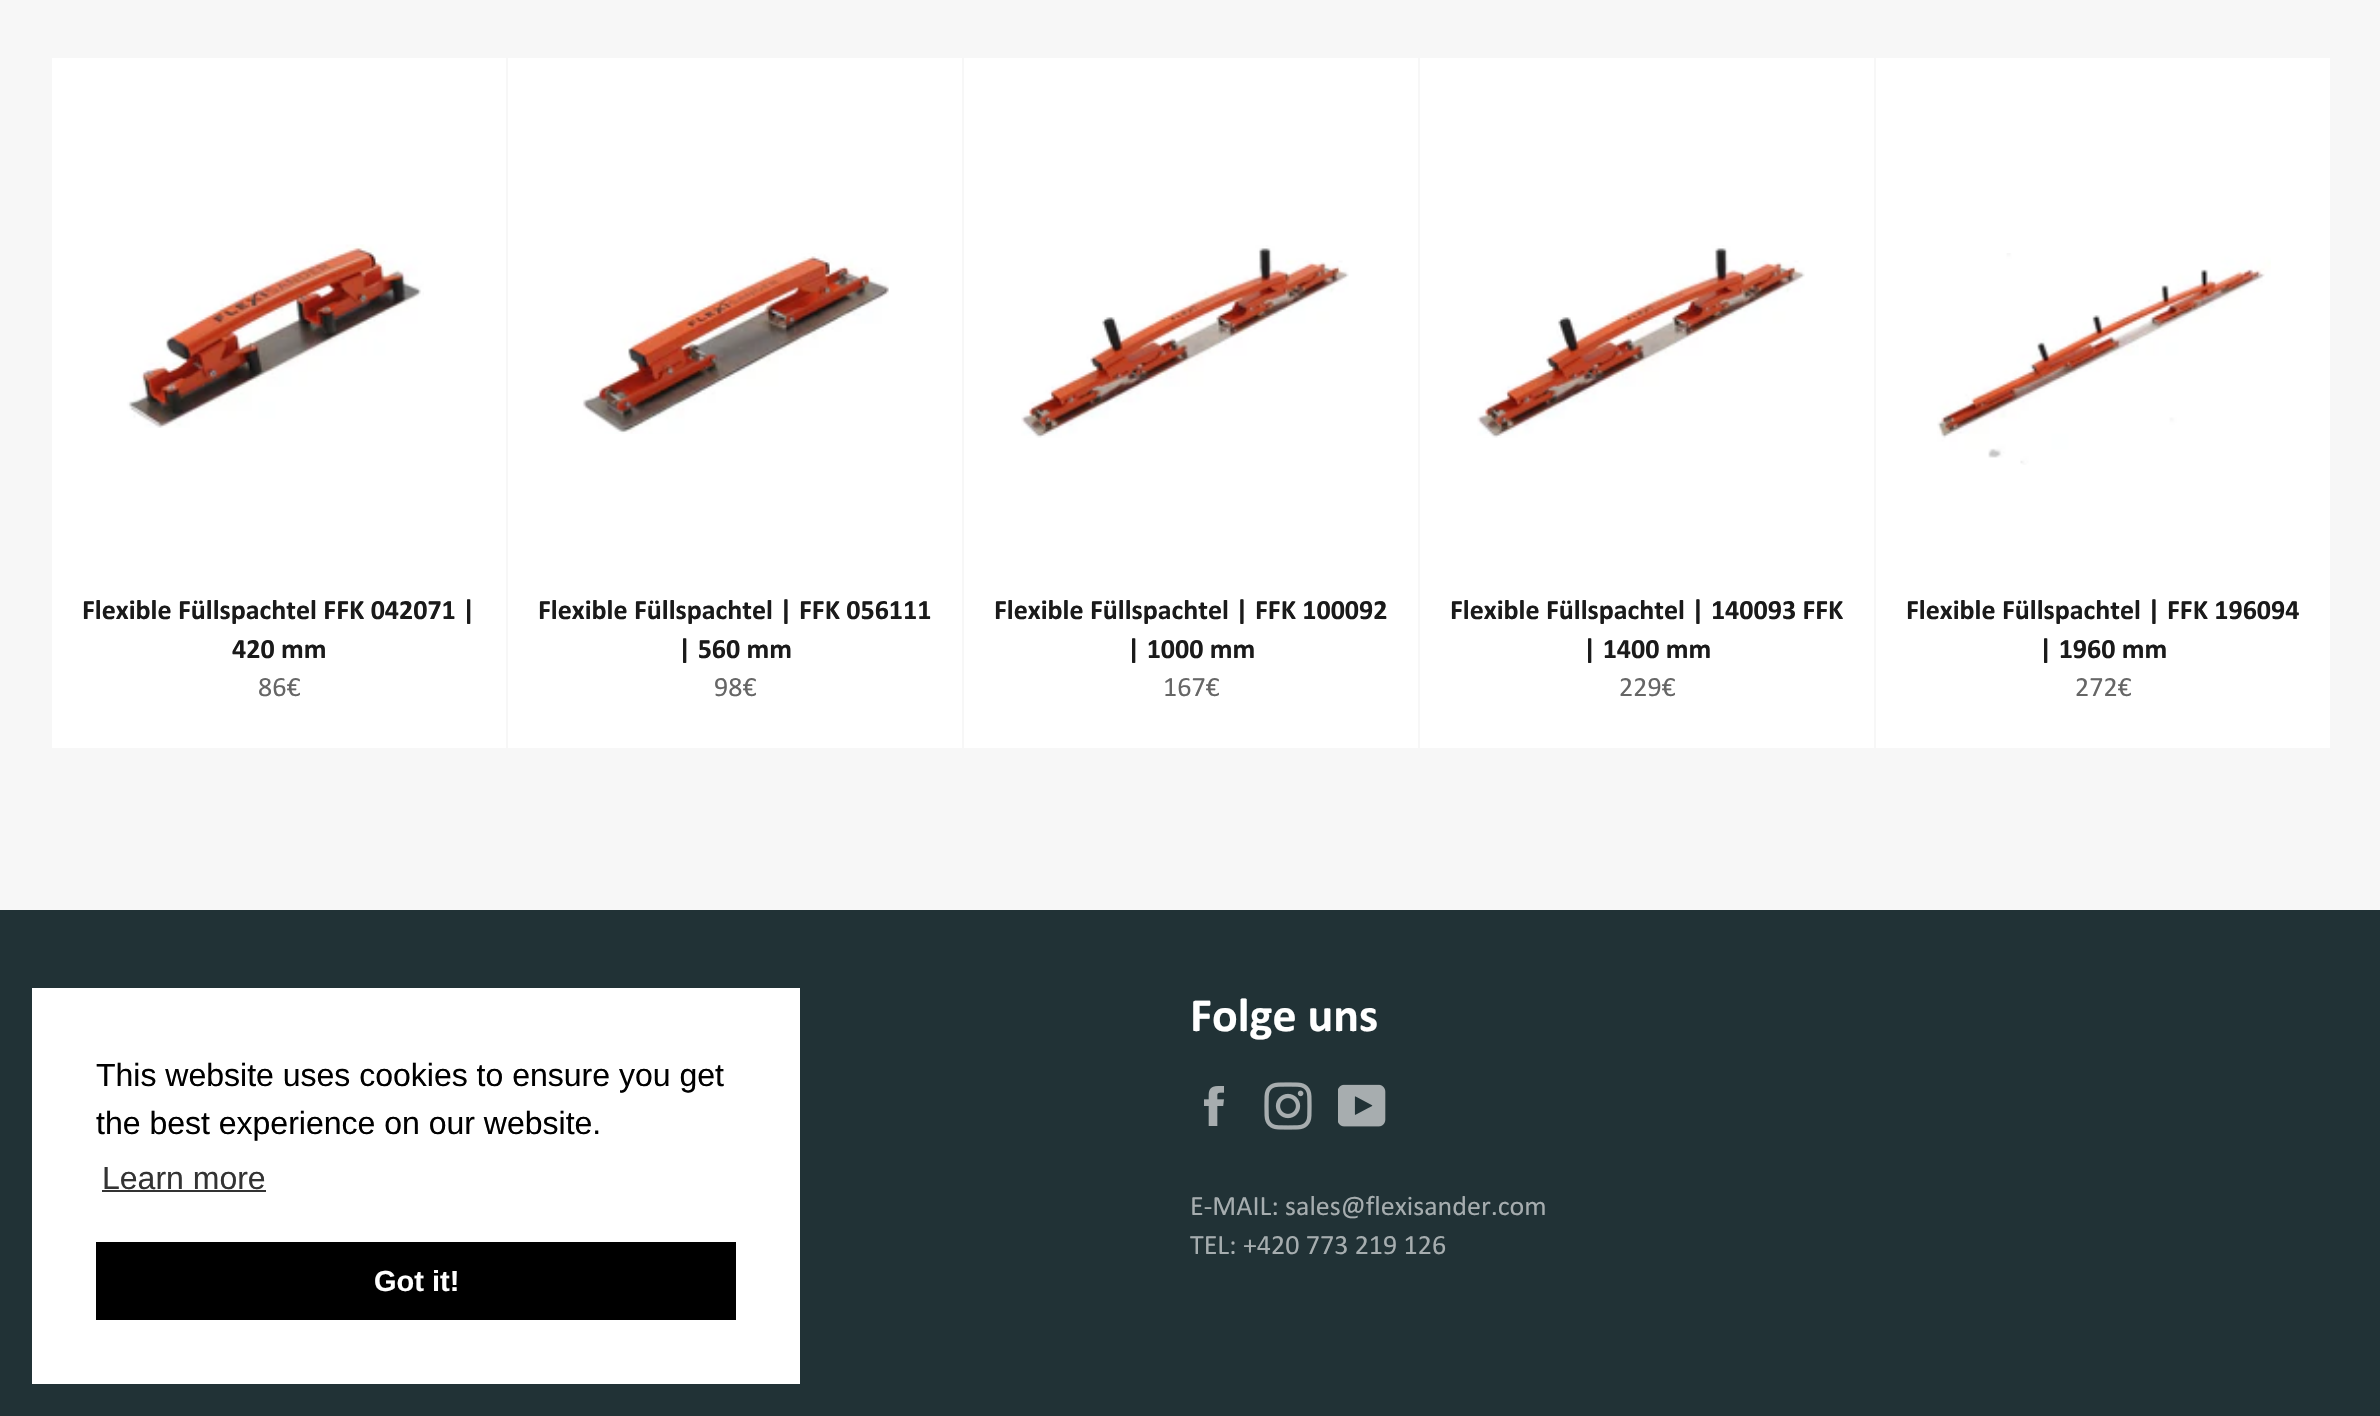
void draw(SkCanvas* canvas) {
	SkPaint fill;
	fill.setAntiAlias(true);
	auto makeFont = [&](const char* family, int weight, float size, bool italic = false) {
		SkFontStyle style(weight, SkFontStyle::kNormal_Width,
			italic ? SkFontStyle::kItalic_Slant : SkFontStyle::kUpright_Slant);
		SkFont result(fontMgr->matchFamilyStyle(family, style), size);
		result.setSubpixel(true);
		return result;
	};
	auto text = [&](const char* s, float x, float y, const SkFont& font) {
		canvas->drawString(s, x, y, font, fill);
	};
	auto box = [&](float l, float t, float r, float b) {
		canvas->drawRect(SkRect::MakeLTRB(l, t, r, b), fill);
	};
	auto picture = [&](const char* path, float l, float t, float r, float b) {
		auto image = SkImages::DeferredFromEncodedData(SkData::MakeFromFileName(path));
		canvas->drawImageRect(image, SkRect::MakeLTRB(l, t, r, b), SkSamplingOptions());
	};
	canvas->clear(0xFFF7F7F7);
	fill.setColor(0xFFFFFFFF);
	box(52, 58, 506, 748);
	picture("image0.png", 127, 244, 424, 428);
	box(508, 58, 962, 748);
	picture("image1.png", 582, 253, 889, 434);
	box(964, 58, 1418, 748);
	picture("image2.png", 1021, 245, 1349, 438);
	box(1420, 58, 1874, 748);
	picture("image2.png", 1477, 245, 1805, 438);
	box(1876, 58, 2330, 748);
	picture("image3.png", 1937, 253, 2271, 465);
	fill.setColor(0xFF213236);
	box(0, 910, 2380, 1416);
	picture("image4.png", 1204, 1086, 1224, 1126);
	picture("image5.png", 1264, 1082, 1312, 1130);
	picture("image6.png", 1338, 1084, 1386, 1127);
	fill.setColor(0xFFFFFFFF);
	box(32, 988, 800, 1384);
	fill.setColor(0xFF333333);
	box(102, 1190, 266, 1192);
	fill.setColor(0xFF000000);
	box(96, 1242, 736, 1320);
	auto font1 = makeFont("Calibri", 700, 28);
	fill.setColor(0xFF1A1A1A);
	text("Flexible Füllspachtel FFK 042071 |", 82, 619, font1);
	text("420 mm", 232, 658, font1);
	auto font2 = makeFont("Calibri", 400, 28);
	fill.setColor(0xFF666666);
	text("86€", 258, 696, font2);
	fill.setColor(0xFF1A1A1A);
	text("Flexible Füllspachtel | FFK 056111", 538, 619, font1);
	text("| 560 mm", 678, 658, font1);
	fill.setColor(0xFF666666);
	text("98€", 714, 696, font2);
	fill.setColor(0xFF1A1A1A);
	text("Flexible Füllspachtel | FFK 100092", 994, 619, font1);
	text("| 1000 mm", 1127, 658, font1);
	fill.setColor(0xFF666666);
	text("167€", 1163, 696, font2);
	fill.setColor(0xFF1A1A1A);
	text("Flexible Füllspachtel | 140093 FFK", 1450, 619, font1);
	text("| 1400 mm", 1583, 658, font1);
	fill.setColor(0xFF666666);
	text("229€", 1619, 696, font2);
	fill.setColor(0xFF1A1A1A);
	text("Flexible Füllspachtel | FFK 196094", 1906, 619, font1);
	text("| 1960 mm", 2039, 658, font1);
	fill.setColor(0xFF666666);
	text("272€", 2075, 696, font2);
	auto font3 = makeFont("Calibri", 700, 48);
	fill.setColor(0xFFFFFFFF);
	text("Folge uns", 1190, 1031, font3);
	fill.setColor(0xFFA6ADAF);
	text("E-MAIL: sales@flexisander.com", 1190, 1215, font2);
	text("TEL: +420 773 219 126", 1190, 1254, font2);
	auto font4 = makeFont("Liberation Sans", 400, 32);
	fill.setColor(0xFF000000);
	text("This website uses cookies to ensure you get", 96, 1086, font4);
	text("the best experience on our website.", 96, 1134, font4);
	fill.setColor(0xFF333333);
	text("Learn more", 102, 1189, font4);
	auto font5 = makeFont("Liberation Sans", 700, 29);
	fill.setColor(0xFFFFFFFF);
	text("Got it!", 374, 1291, font5);
}
